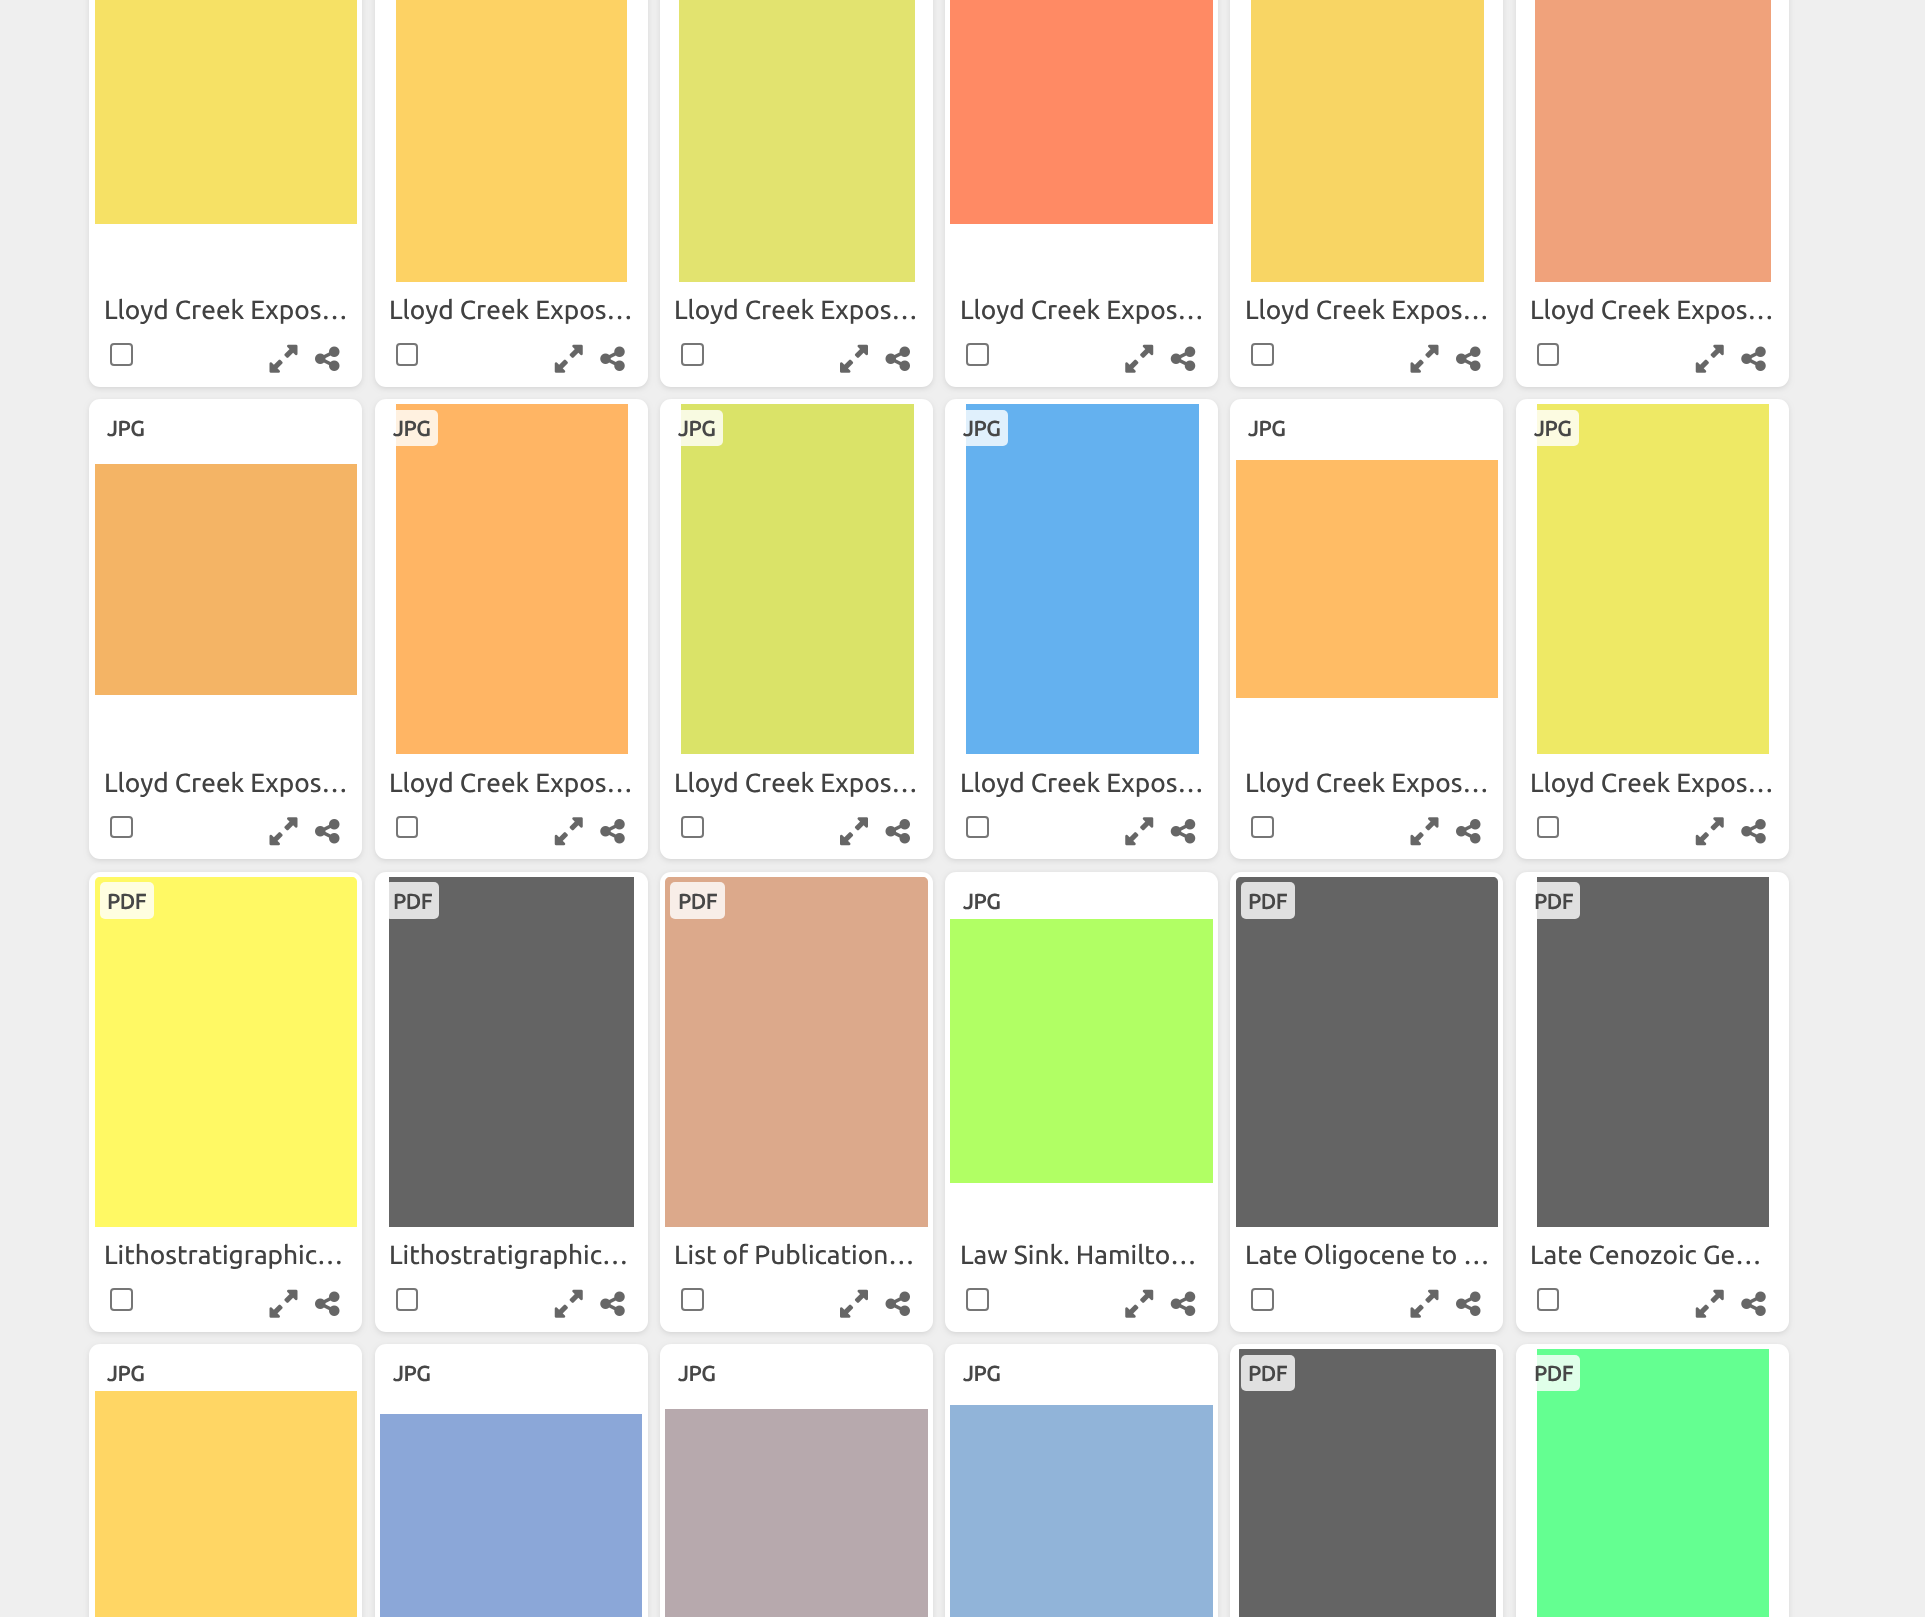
void draw(SkCanvas* canvas) {
	SkPaint fill;
	fill.setAntiAlias(true);
	auto makeFont = [&](const char* family, int weight, float size, bool italic = false) {
		SkFontStyle style(weight, SkFontStyle::kNormal_Width,
			italic ? SkFontStyle::kItalic_Slant : SkFontStyle::kUpright_Slant);
		SkFont result(fontMgr->matchFamilyStyle(family, style), size);
		result.setSubpixel(true);
		return result;
	};
	auto text = [&](const char* s, float x, float y, const SkFont& font) {
		canvas->drawString(s, x, y, font, fill);
	};
	auto box = [&](float l, float t, float r, float b) {
		canvas->drawRect(SkRect::MakeLTRB(l, t, r, b), fill);
	};
	auto roundBox = [&](float l, float t, float r, float b, float radius) {
		canvas->drawRoundRect(SkRect::MakeLTRB(l, t, r, b), radius, radius, fill);
	};
	auto picture = [&](const char* path, float l, float t, float r, float b) {
		auto image = SkImages::DeferredFromEncodedData(SkData::MakeFromFileName(path));
		canvas->drawImageRect(image, SkRect::MakeLTRB(l, t, r, b), SkSamplingOptions());
	};
	canvas->clear(0xFFEFEFEF);
	fill.setColor(0x1A000000);
	fill.setMaskFilter(SkMaskFilter::MakeBlur(kNormal_SkBlurStyle, 2.5f));
	canvas->drawRoundRect(SkRect::MakeLTRB(89, -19, 362, 389), 11, 11, fill);
	fill.setMaskFilter(nullptr);
	fill.setColor(0xFFFFFFFF);
	roundBox(89, -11, 362, 387, 11);
	fill.setColor(0xFFF6E165);
	box(95, 0, 357, 224);
	fill.setStyle(SkPaint::kStroke_Style);
	fill.setStrokeWidth(2);
	fill.setColor(0xFF767676);
	canvas->drawRoundRect(SkRect::MakeLTRB(111, 344, 132, 365), 3, 3, fill);
	picture("image0.png", 269, 344, 298, 373);
	picture("image1.png", 315, 346, 340, 371);
	fill.setStyle(SkPaint::kFill_Style);
	fill.setColor(0x1A000000);
	fill.setMaskFilter(SkMaskFilter::MakeBlur(kNormal_SkBlurStyle, 2.5f));
	canvas->drawRoundRect(SkRect::MakeLTRB(375, -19, 648, 389), 11, 11, fill);
	fill.setMaskFilter(nullptr);
	fill.setColor(0xFFFFFFFF);
	roundBox(375, -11, 648, 387, 11);
	fill.setColor(0xFFFDD264);
	box(396, 0, 627, 282);
	fill.setStyle(SkPaint::kStroke_Style);
	fill.setColor(0xFF767676);
	canvas->drawRoundRect(SkRect::MakeLTRB(397, 344, 417, 365), 3, 3, fill);
	picture("image2.png", 554, 344, 583, 373);
	picture("image3.png", 600, 346, 625, 371);
	fill.setStyle(SkPaint::kFill_Style);
	fill.setColor(0x1A000000);
	fill.setMaskFilter(SkMaskFilter::MakeBlur(kNormal_SkBlurStyle, 2.5f));
	canvas->drawRoundRect(SkRect::MakeLTRB(660, -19, 933, 389), 11, 11, fill);
	fill.setMaskFilter(nullptr);
	fill.setColor(0xFFFFFFFF);
	roundBox(660, -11, 933, 387, 11);
	fill.setColor(0xFFE2E36F);
	box(679, 0, 915, 282);
	fill.setStyle(SkPaint::kStroke_Style);
	fill.setColor(0xFF767676);
	canvas->drawRoundRect(SkRect::MakeLTRB(682, 344, 703, 365), 3, 3, fill);
	picture("image4.png", 840, 344, 868, 373);
	picture("image5.png", 885, 346, 910, 371);
	fill.setStyle(SkPaint::kFill_Style);
	fill.setColor(0x1A000000);
	fill.setMaskFilter(SkMaskFilter::MakeBlur(kNormal_SkBlurStyle, 2.5f));
	canvas->drawRoundRect(SkRect::MakeLTRB(945, -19, 1218, 389), 11, 11, fill);
	fill.setMaskFilter(nullptr);
	fill.setColor(0xFFFFFFFF);
	roundBox(945, -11, 1218, 387, 11);
	fill.setColor(0xFFFF8A64);
	box(950, 0, 1213, 224);
	fill.setStyle(SkPaint::kStroke_Style);
	fill.setColor(0xFF767676);
	canvas->drawRoundRect(SkRect::MakeLTRB(967, 344, 988, 365), 3, 3, fill);
	picture("image6.png", 1125, 344, 1154, 373);
	picture("image7.png", 1170, 346, 1196, 371);
	fill.setStyle(SkPaint::kFill_Style);
	fill.setColor(0x1A000000);
	fill.setMaskFilter(SkMaskFilter::MakeBlur(kNormal_SkBlurStyle, 2.5f));
	canvas->drawRoundRect(SkRect::MakeLTRB(1230, -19, 1503, 389), 11, 11, fill);
	fill.setMaskFilter(nullptr);
	fill.setColor(0xFFFFFFFF);
	roundBox(1230, -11, 1503, 387, 11);
	fill.setColor(0xFFF8D564);
	box(1251, 0, 1484, 282);
	fill.setStyle(SkPaint::kStroke_Style);
	fill.setColor(0xFF767676);
	canvas->drawRoundRect(SkRect::MakeLTRB(1252, 344, 1273, 365), 3, 3, fill);
	picture("image0.png", 1410, 344, 1439, 373);
	picture("image1.png", 1456, 346, 1481, 371);
	fill.setStyle(SkPaint::kFill_Style);
	fill.setColor(0x1A000000);
	fill.setMaskFilter(SkMaskFilter::MakeBlur(kNormal_SkBlurStyle, 2.5f));
	canvas->drawRoundRect(SkRect::MakeLTRB(1516, -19, 1789, 389), 11, 11, fill);
	fill.setMaskFilter(nullptr);
	fill.setColor(0xFFFFFFFF);
	roundBox(1516, -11, 1789, 387, 11);
	fill.setColor(0xFFF0A27B);
	box(1535, 0, 1771, 282);
	fill.setStyle(SkPaint::kStroke_Style);
	fill.setColor(0xFF767676);
	canvas->drawRoundRect(SkRect::MakeLTRB(1538, 344, 1558, 365), 3, 3, fill);
	picture("image2.png", 1695, 344, 1724, 373);
	picture("image3.png", 1741, 346, 1766, 371);
	fill.setStyle(SkPaint::kFill_Style);
	fill.setColor(0x1A000000);
	fill.setMaskFilter(SkMaskFilter::MakeBlur(kNormal_SkBlurStyle, 2.5f));
	canvas->drawRoundRect(SkRect::MakeLTRB(89, 401, 362, 861), 11, 11, fill);
	fill.setMaskFilter(nullptr);
	fill.setColor(0xFFFFFFFF);
	roundBox(89, 399, 362, 859, 11);
	fill.setColor(0xFFF4B465);
	box(95, 464, 357, 695);
	fill.setStyle(SkPaint::kStroke_Style);
	fill.setColor(0xFF767676);
	canvas->drawRoundRect(SkRect::MakeLTRB(111, 817, 132, 837), 3, 3, fill);
	picture("image8.png", 269, 817, 298, 846);
	picture("image9.png", 315, 819, 340, 844);
	fill.setStyle(SkPaint::kFill_Style);
	fill.setColor(0x1A000000);
	fill.setMaskFilter(SkMaskFilter::MakeBlur(kNormal_SkBlurStyle, 2.5f));
	canvas->drawRoundRect(SkRect::MakeLTRB(375, 401, 648, 861), 11, 11, fill);
	fill.setMaskFilter(nullptr);
	fill.setColor(0xFFFFFFFF);
	roundBox(375, 399, 648, 859, 11);
	fill.setColor(0xFFFFB564);
	box(396, 404, 628, 754);
	fill.setColor(0xCCFFFFFF);
	roundBox(385, 410, 438, 446, 5);
	fill.setStyle(SkPaint::kStroke_Style);
	fill.setColor(0xFF767676);
	canvas->drawRoundRect(SkRect::MakeLTRB(397, 817, 417, 837), 3, 3, fill);
	picture("image10.png", 554, 817, 583, 846);
	picture("image11.png", 600, 819, 625, 844);
	fill.setStyle(SkPaint::kFill_Style);
	fill.setColor(0x1A000000);
	fill.setMaskFilter(SkMaskFilter::MakeBlur(kNormal_SkBlurStyle, 2.5f));
	canvas->drawRoundRect(SkRect::MakeLTRB(660, 401, 933, 861), 11, 11, fill);
	fill.setMaskFilter(nullptr);
	fill.setColor(0xFFFFFFFF);
	roundBox(660, 399, 933, 859, 11);
	fill.setColor(0xFFDAE368);
	box(681, 404, 914, 754);
	fill.setColor(0xCCFFFFFF);
	roundBox(670, 410, 723, 446, 5);
	fill.setStyle(SkPaint::kStroke_Style);
	fill.setColor(0xFF767676);
	canvas->drawRoundRect(SkRect::MakeLTRB(682, 817, 703, 837), 3, 3, fill);
	picture("image12.png", 840, 817, 868, 846);
	picture("image13.png", 885, 819, 910, 844);
	fill.setStyle(SkPaint::kFill_Style);
	fill.setColor(0x1A000000);
	fill.setMaskFilter(SkMaskFilter::MakeBlur(kNormal_SkBlurStyle, 2.5f));
	canvas->drawRoundRect(SkRect::MakeLTRB(945, 401, 1218, 861), 11, 11, fill);
	fill.setMaskFilter(nullptr);
	fill.setColor(0xFFFFFFFF);
	roundBox(945, 399, 1218, 859, 11);
	fill.setColor(0xFF64B1EF);
	box(966, 404, 1199, 754);
	fill.setColor(0xCCFFFFFF);
	roundBox(956, 410, 1008, 446, 5);
	fill.setStyle(SkPaint::kStroke_Style);
	fill.setColor(0xFF767676);
	canvas->drawRoundRect(SkRect::MakeLTRB(967, 817, 988, 837), 3, 3, fill);
	picture("image14.png", 1125, 817, 1154, 846);
	picture("image15.png", 1170, 819, 1196, 844);
	fill.setStyle(SkPaint::kFill_Style);
	fill.setColor(0x1A000000);
	fill.setMaskFilter(SkMaskFilter::MakeBlur(kNormal_SkBlurStyle, 2.5f));
	canvas->drawRoundRect(SkRect::MakeLTRB(1230, 401, 1503, 861), 11, 11, fill);
	fill.setMaskFilter(nullptr);
	fill.setColor(0xFFFFFFFF);
	roundBox(1230, 399, 1503, 859, 11);
	fill.setColor(0xFFFFBC65);
	box(1236, 460, 1498, 698);
	fill.setStyle(SkPaint::kStroke_Style);
	fill.setColor(0xFF767676);
	canvas->drawRoundRect(SkRect::MakeLTRB(1252, 817, 1273, 837), 3, 3, fill);
	picture("image8.png", 1410, 817, 1439, 846);
	picture("image9.png", 1456, 819, 1481, 844);
	fill.setStyle(SkPaint::kFill_Style);
	fill.setColor(0x1A000000);
	fill.setMaskFilter(SkMaskFilter::MakeBlur(kNormal_SkBlurStyle, 2.5f));
	canvas->drawRoundRect(SkRect::MakeLTRB(1516, 401, 1789, 861), 11, 11, fill);
	fill.setMaskFilter(nullptr);
	fill.setColor(0xFFFFFFFF);
	roundBox(1516, 399, 1789, 859, 11);
	fill.setColor(0xFFEEE965);
	box(1537, 404, 1769, 754);
	fill.setColor(0xCCFFFFFF);
	roundBox(1526, 410, 1579, 446, 5);
	fill.setStyle(SkPaint::kStroke_Style);
	fill.setColor(0xFF767676);
	canvas->drawRoundRect(SkRect::MakeLTRB(1538, 817, 1558, 837), 3, 3, fill);
	picture("image10.png", 1695, 817, 1724, 846);
	picture("image11.png", 1741, 819, 1766, 844);
	fill.setStyle(SkPaint::kFill_Style);
	fill.setColor(0x1A000000);
	fill.setMaskFilter(SkMaskFilter::MakeBlur(kNormal_SkBlurStyle, 2.5f));
	canvas->drawRoundRect(SkRect::MakeLTRB(89, 873, 362, 1334), 11, 11, fill);
	fill.setMaskFilter(nullptr);
	fill.setColor(0xFFFFFFFF);
	roundBox(89, 872, 362, 1332, 11);
	fill.setColor(0xFFFFF964);
	canvas->drawPath(SkPathBuilder().moveTo(100, 877).lineTo(352, 877).cubicTo(355, 877, 357, 879, 357, 882).lineTo(357, 1227).lineTo(95, 1227).lineTo(95, 882).cubicTo(95, 879, 97, 877, 100, 877).close().detach(), fill);
	fill.setColor(0xFFFFFEE0);
	roundBox(100, 882, 154, 919, 5);
	fill.setStyle(SkPaint::kStroke_Style);
	fill.setColor(0xFF767676);
	canvas->drawRoundRect(SkRect::MakeLTRB(111, 1289, 132, 1310), 3, 3, fill);
	picture("image0.png", 269, 1289, 298, 1318);
	picture("image1.png", 315, 1291, 340, 1316);
	fill.setStyle(SkPaint::kFill_Style);
	fill.setColor(0x1A000000);
	fill.setMaskFilter(SkMaskFilter::MakeBlur(kNormal_SkBlurStyle, 2.5f));
	canvas->drawRoundRect(SkRect::MakeLTRB(375, 873, 648, 1334), 11, 11, fill);
	fill.setMaskFilter(nullptr);
	fill.setColor(0xFFFFFFFF);
	roundBox(375, 872, 648, 1332, 11);
	fill.setColor(0xFF646464);
	box(389, 877, 634, 1227);
	fill.setColor(0xCCFFFFFF);
	roundBox(385, 882, 439, 919, 5);
	fill.setStyle(SkPaint::kStroke_Style);
	fill.setColor(0xFF767676);
	canvas->drawRoundRect(SkRect::MakeLTRB(397, 1289, 417, 1310), 3, 3, fill);
	picture("image2.png", 554, 1289, 583, 1318);
	picture("image3.png", 600, 1291, 625, 1316);
	fill.setStyle(SkPaint::kFill_Style);
	fill.setColor(0x1A000000);
	fill.setMaskFilter(SkMaskFilter::MakeBlur(kNormal_SkBlurStyle, 2.5f));
	canvas->drawRoundRect(SkRect::MakeLTRB(660, 873, 933, 1334), 11, 11, fill);
	fill.setMaskFilter(nullptr);
	fill.setColor(0xFFFFFFFF);
	roundBox(660, 872, 933, 1332, 11);
	fill.setColor(0xFFDCA98B);
	canvas->drawPath(SkPathBuilder().moveTo(670, 877).lineTo(923, 877).cubicTo(926, 877, 928, 879, 928, 882).lineTo(928, 1227).lineTo(665, 1227).lineTo(665, 882).cubicTo(665, 879, 667, 877, 670, 877).close().detach(), fill);
	fill.setColor(0xFFF8EEE8);
	roundBox(670, 882, 725, 919, 5);
	fill.setStyle(SkPaint::kStroke_Style);
	fill.setColor(0xFF767676);
	canvas->drawRoundRect(SkRect::MakeLTRB(682, 1289, 703, 1310), 3, 3, fill);
	picture("image4.png", 840, 1289, 868, 1318);
	picture("image5.png", 885, 1291, 910, 1316);
	fill.setStyle(SkPaint::kFill_Style);
	fill.setColor(0x1A000000);
	fill.setMaskFilter(SkMaskFilter::MakeBlur(kNormal_SkBlurStyle, 2.5f));
	canvas->drawRoundRect(SkRect::MakeLTRB(945, 873, 1218, 1334), 11, 11, fill);
	fill.setMaskFilter(nullptr);
	fill.setColor(0xFFFFFFFF);
	roundBox(945, 872, 1218, 1332, 11);
	fill.setColor(0xFFB1FF64);
	box(950, 919, 1213, 1183);
	fill.setStyle(SkPaint::kStroke_Style);
	fill.setColor(0xFF767676);
	canvas->drawRoundRect(SkRect::MakeLTRB(967, 1289, 988, 1310), 3, 3, fill);
	picture("image6.png", 1125, 1289, 1154, 1318);
	picture("image7.png", 1170, 1291, 1196, 1316);
	fill.setStyle(SkPaint::kFill_Style);
	fill.setColor(0x1A000000);
	fill.setMaskFilter(SkMaskFilter::MakeBlur(kNormal_SkBlurStyle, 2.5f));
	canvas->drawRoundRect(SkRect::MakeLTRB(1230, 873, 1503, 1334), 11, 11, fill);
	fill.setMaskFilter(nullptr);
	fill.setColor(0xFFFFFFFF);
	roundBox(1230, 872, 1503, 1332, 11);
	fill.setColor(0xFF646464);
	canvas->drawPath(SkPathBuilder().moveTo(1241, 877).lineTo(1493, 877).cubicTo(1496, 877, 1498, 879, 1498, 882).lineTo(1498, 1227).lineTo(1236, 1227).lineTo(1236, 882).cubicTo(1236, 879, 1238, 877, 1241, 877).close().detach(), fill);
	fill.setColor(0xFFE0E0E0);
	roundBox(1241, 882, 1295, 919, 5);
	fill.setStyle(SkPaint::kStroke_Style);
	fill.setColor(0xFF767676);
	canvas->drawRoundRect(SkRect::MakeLTRB(1252, 1289, 1273, 1310), 3, 3, fill);
	picture("image0.png", 1410, 1289, 1439, 1318);
	picture("image1.png", 1456, 1291, 1481, 1316);
	fill.setStyle(SkPaint::kFill_Style);
	fill.setColor(0x1A000000);
	fill.setMaskFilter(SkMaskFilter::MakeBlur(kNormal_SkBlurStyle, 2.5f));
	canvas->drawRoundRect(SkRect::MakeLTRB(1516, 873, 1789, 1334), 11, 11, fill);
	fill.setMaskFilter(nullptr);
	fill.setColor(0xFFFFFFFF);
	roundBox(1516, 872, 1789, 1332, 11);
	fill.setColor(0xFF646464);
	box(1537, 877, 1769, 1227);
	fill.setColor(0xCCFFFFFF);
	roundBox(1526, 882, 1580, 919, 5);
	fill.setStyle(SkPaint::kStroke_Style);
	fill.setColor(0xFF767676);
	canvas->drawRoundRect(SkRect::MakeLTRB(1538, 1289, 1558, 1310), 3, 3, fill);
	picture("image2.png", 1695, 1289, 1724, 1318);
	picture("image3.png", 1741, 1291, 1766, 1316);
	fill.setStyle(SkPaint::kFill_Style);
	fill.setColor(0x1A000000);
	fill.setMaskFilter(SkMaskFilter::MakeBlur(kNormal_SkBlurStyle, 2.5f));
	canvas->drawRoundRect(SkRect::MakeLTRB(89, 1346, 362, 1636), 11, 11, fill);
	fill.setMaskFilter(nullptr);
	fill.setColor(0xFFFFFFFF);
	roundBox(89, 1344, 362, 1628, 11);
	fill.setColor(0xFFFFD664);
	box(95, 1391, 357, 1617);
	fill.setColor(0x1A000000);
	fill.setMaskFilter(SkMaskFilter::MakeBlur(kNormal_SkBlurStyle, 2.5f));
	canvas->drawRoundRect(SkRect::MakeLTRB(375, 1346, 648, 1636), 11, 11, fill);
	fill.setMaskFilter(nullptr);
	fill.setColor(0xFFFFFFFF);
	roundBox(375, 1344, 648, 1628, 11);
	fill.setColor(0xFF8BA7D8);
	box(380, 1414, 642, 1617);
	fill.setColor(0x1A000000);
	fill.setMaskFilter(SkMaskFilter::MakeBlur(kNormal_SkBlurStyle, 2.5f));
	canvas->drawRoundRect(SkRect::MakeLTRB(660, 1346, 933, 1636), 11, 11, fill);
	fill.setMaskFilter(nullptr);
	fill.setColor(0xFFFFFFFF);
	roundBox(660, 1344, 933, 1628, 11);
	fill.setColor(0xFFB7A9AD);
	box(665, 1409, 928, 1617);
	fill.setColor(0x1A000000);
	fill.setMaskFilter(SkMaskFilter::MakeBlur(kNormal_SkBlurStyle, 2.5f));
	canvas->drawRoundRect(SkRect::MakeLTRB(945, 1346, 1218, 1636), 11, 11, fill);
	fill.setMaskFilter(nullptr);
	fill.setColor(0xFFFFFFFF);
	roundBox(945, 1344, 1218, 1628, 11);
	fill.setColor(0xFF91B4D9);
	box(950, 1405, 1213, 1617);
	fill.setColor(0x1A000000);
	fill.setMaskFilter(SkMaskFilter::MakeBlur(kNormal_SkBlurStyle, 2.5f));
	canvas->drawRoundRect(SkRect::MakeLTRB(1230, 1346, 1503, 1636), 11, 11, fill);
	fill.setMaskFilter(nullptr);
	fill.setColor(0xFFFFFFFF);
	roundBox(1230, 1344, 1503, 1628, 11);
	canvas->save();
	canvas->clipPath(SkPathBuilder().moveTo(1241, 1349).lineTo(1493, 1349).cubicTo(1496, 1349, 1498, 1351, 1498, 1354).lineTo(1498, 1794).cubicTo(1498, 1797, 1496, 1799, 1493, 1799).lineTo(1241, 1799).cubicTo(1238, 1799, 1236, 1797, 1236, 1794).lineTo(1236, 1354).cubicTo(1236, 1351, 1238, 1349, 1241, 1349).close().detach(), true);
	fill.setColor(0xFF646464);
	box(1239, 1349, 1496, 1617);
	canvas->restore();
	fill.setColor(0xFFE0E0E0);
	roundBox(1241, 1355, 1295, 1391, 5);
	fill.setColor(0x1A000000);
	fill.setMaskFilter(SkMaskFilter::MakeBlur(kNormal_SkBlurStyle, 2.5f));
	canvas->drawRoundRect(SkRect::MakeLTRB(1516, 1346, 1789, 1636), 11, 11, fill);
	fill.setMaskFilter(nullptr);
	fill.setColor(0xFFFFFFFF);
	roundBox(1516, 1344, 1789, 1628, 11);
	fill.setColor(0xFF64FF91);
	box(1537, 1349, 1769, 1617);
	fill.setColor(0xCCFFFFFF);
	roundBox(1526, 1355, 1580, 1391, 5);
	auto font1 = makeFont("Ubuntu", 400, 26.25f);
	fill.setColor(0xFF414141);
	text("Lloyd Creek Expos…", 104, 319, font1);
	text("Lloyd Creek Expos…", 389, 319, font1);
	text("Lloyd Creek Expos…", 674, 319, font1);
	text("Lloyd Creek Expos…", 960, 319, font1);
	text("Lloyd Creek Expos…", 1245, 319, font1);
	text("Lloyd Creek Expos…", 1530, 319, font1);
	auto font2 = makeFont("Ubuntu", 700, 21);
	fill.setColor(0xFF474747);
	text("JPG", 107, 436, font2);
	fill.setColor(0xFF414141);
	text("Lloyd Creek Expos…", 104, 792, font1);
	fill.setColor(0xFF474747);
	text("JPG", 393, 436, font2);
	fill.setColor(0xFF414141);
	text("Lloyd Creek Expos…", 389, 792, font1);
	fill.setColor(0xFF474747);
	text("JPG", 678, 436, font2);
	fill.setColor(0xFF414141);
	text("Lloyd Creek Expos…", 674, 792, font1);
	fill.setColor(0xFF474747);
	text("JPG", 963, 436, font2);
	fill.setColor(0xFF414141);
	text("Lloyd Creek Expos…", 960, 792, font1);
	fill.setColor(0xFF474747);
	text("JPG", 1248, 436, font2);
	fill.setColor(0xFF414141);
	text("Lloyd Creek Expos…", 1245, 792, font1);
	fill.setColor(0xFF474747);
	text("JPG", 1534, 436, font2);
	fill.setColor(0xFF414141);
	text("Lloyd Creek Expos…", 1530, 792, font1);
	fill.setColor(0xFF474747);
	text("PDF", 107, 909, font2);
	fill.setColor(0xFF414141);
	text("Lithostratigraphic…", 104, 1264, font1);
	fill.setColor(0xFF474747);
	text("PDF", 393, 909, font2);
	fill.setColor(0xFF414141);
	text("Lithostratigraphic…", 389, 1264, font1);
	fill.setColor(0xFF474747);
	text("PDF", 678, 909, font2);
	fill.setColor(0xFF414141);
	text("List of Publication…", 674, 1264, font1);
	fill.setColor(0xFF474747);
	text("JPG", 963, 909, font2);
	fill.setColor(0xFF414141);
	text("Law Sink. Hamilto…", 960, 1264, font1);
	fill.setColor(0xFF474747);
	text("PDF", 1248, 909, font2);
	fill.setColor(0xFF414141);
	text("Late Oligocene to …", 1245, 1264, font1);
	fill.setColor(0xFF474747);
	text("PDF", 1534, 909, font2);
	fill.setColor(0xFF414141);
	text("Late Cenozoic Ge…", 1530, 1264, font1);
	fill.setColor(0xFF474747);
	text("JPG", 107, 1381, font2);
	text("JPG", 393, 1381, font2);
	text("JPG", 678, 1381, font2);
	text("JPG", 963, 1381, font2);
	text("PDF", 1248, 1381, font2);
	text("PDF", 1534, 1381, font2);
}
